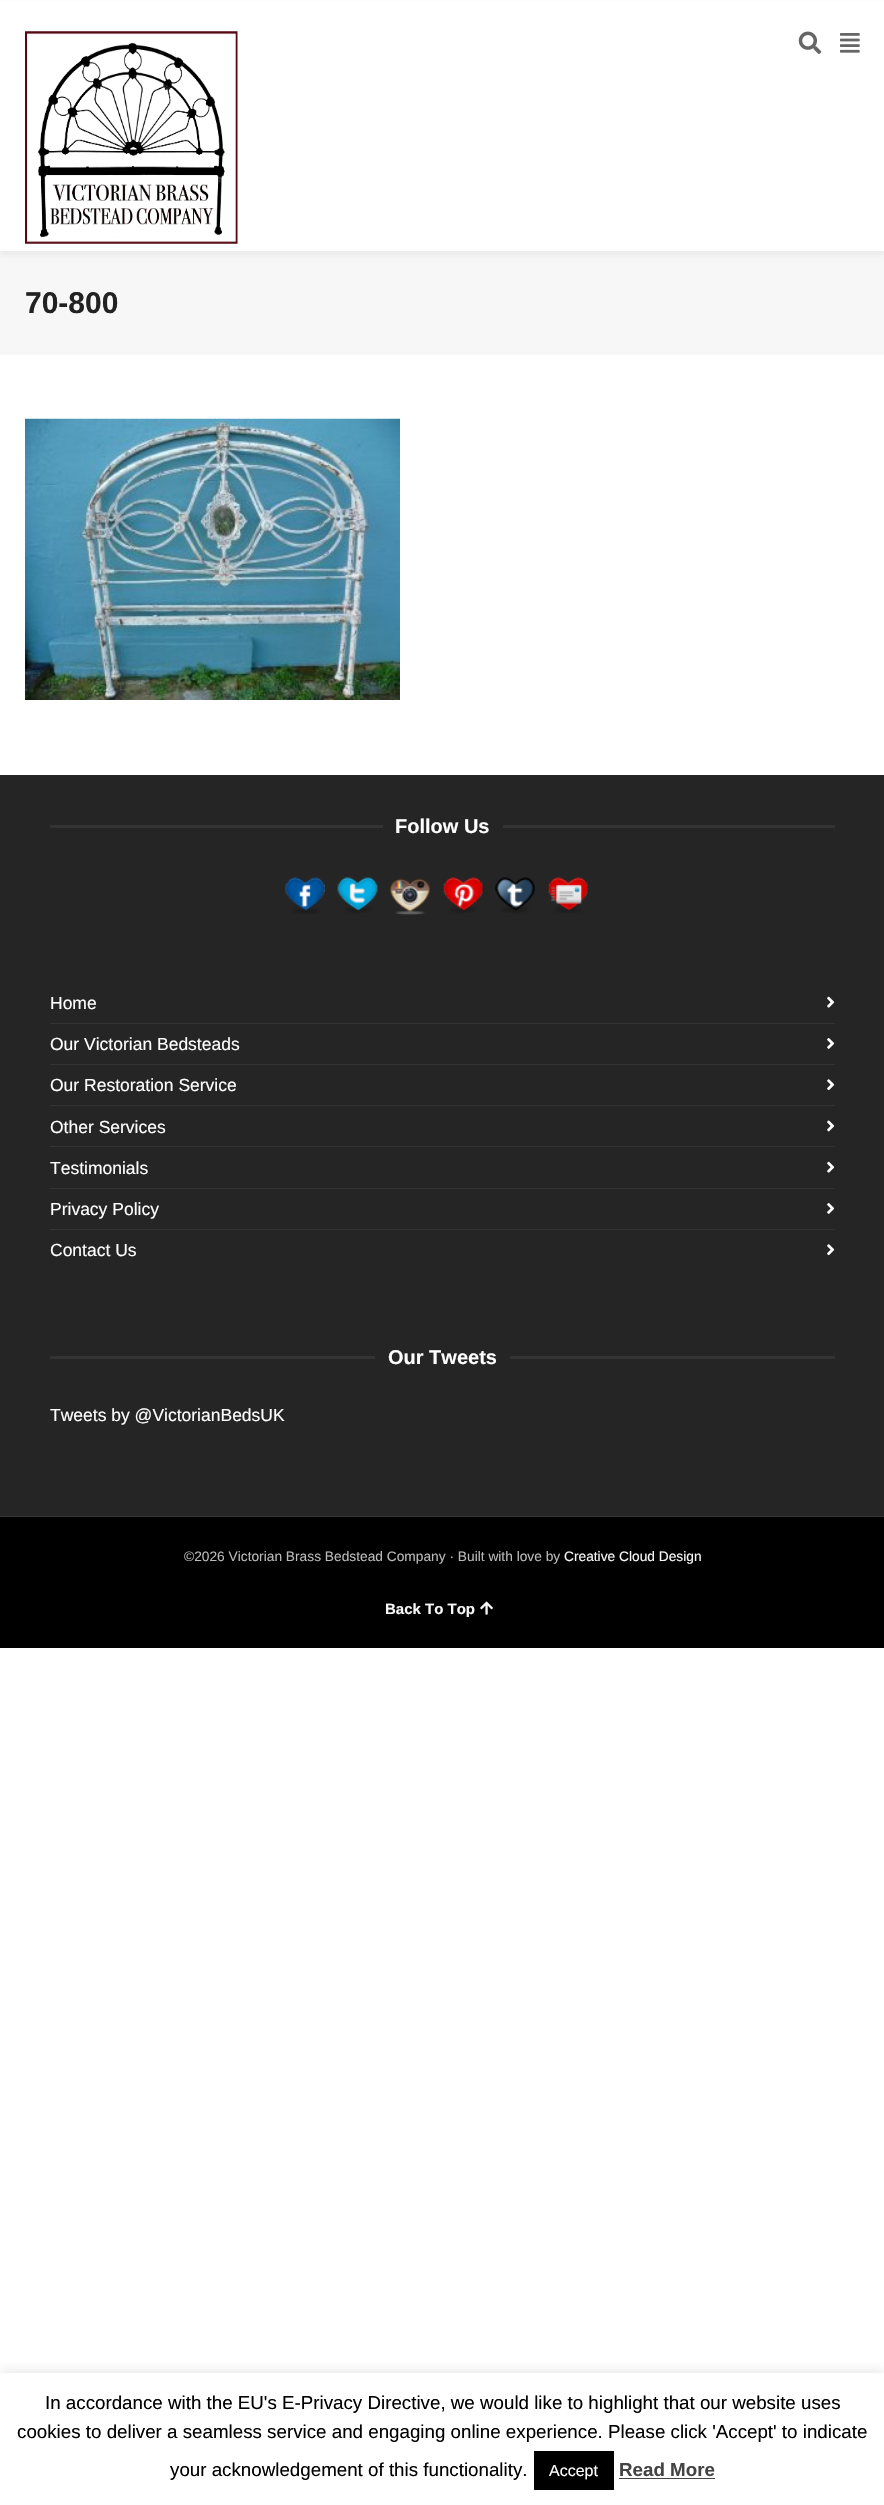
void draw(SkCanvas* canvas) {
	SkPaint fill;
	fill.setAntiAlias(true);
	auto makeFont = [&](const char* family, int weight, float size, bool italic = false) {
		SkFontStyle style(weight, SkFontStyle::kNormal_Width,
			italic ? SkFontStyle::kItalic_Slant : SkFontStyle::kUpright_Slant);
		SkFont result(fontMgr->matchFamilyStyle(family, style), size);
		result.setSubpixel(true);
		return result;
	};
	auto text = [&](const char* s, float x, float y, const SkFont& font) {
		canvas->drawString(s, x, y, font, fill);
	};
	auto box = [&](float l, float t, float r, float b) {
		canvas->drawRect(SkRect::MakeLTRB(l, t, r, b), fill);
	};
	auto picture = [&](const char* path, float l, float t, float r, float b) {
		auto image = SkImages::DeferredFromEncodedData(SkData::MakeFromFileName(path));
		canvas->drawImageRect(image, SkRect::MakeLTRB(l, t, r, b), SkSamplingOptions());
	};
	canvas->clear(0xFFFFFFFF);
	fill.setColor(0xFFF7F7F7);
	box(0, 251, 884, 355);
	fill.setColor(0x0D000000);
	fill.setMaskFilter(SkMaskFilter::MakeBlur(kNormal_SkBlurStyle, 3));
	canvas->drawRect(SkRect::MakeLTRB(0, 4, 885, 255), fill);
	fill.setMaskFilter(nullptr);
	fill.setColor(0xFFFFFFFF);
	box(0, 1, 884, 251);
	picture("image0.png", 25, 31, 238, 244);
	picture("image1.png", 798, 31, 822, 54);
	picture("image2.png", 840, 33, 860, 53);
	picture("image3.png", 25, 418, 400, 700);
	fill.setColor(0xFF252525);
	box(0, 775, 884, 1516);
	fill.setColor(0xFF333333);
	box(50, 825, 835, 828);
	fill.setColor(0xFF252525);
	box(383, 825, 503, 828);
	picture("image4.png", 285, 877, 325, 914);
	picture("image5.png", 337, 877, 378, 913);
	picture("image6.png", 390, 878, 430, 915);
	picture("image7.png", 443, 877, 483, 913);
	picture("image8.png", 495, 877, 535, 913);
	picture("image9.png", 548, 877, 588, 913);
	picture("image10.png", 827, 996, 835, 1008);
	fill.setColor(0xFF333333);
	box(50, 1023, 835, 1024);
	picture("image11.png", 827, 1038, 835, 1049);
	box(50, 1064, 835, 1065);
	picture("image12.png", 827, 1079, 835, 1091);
	box(50, 1105, 835, 1106);
	picture("image13.png", 827, 1120, 835, 1132);
	box(50, 1146, 835, 1147);
	picture("image10.png", 827, 1161, 835, 1173);
	box(50, 1188, 835, 1189);
	picture("image11.png", 827, 1203, 835, 1214);
	box(50, 1229, 835, 1230);
	picture("image12.png", 827, 1244, 835, 1256);
	box(50, 1356, 835, 1359);
	fill.setColor(0xFF252525);
	box(375, 1356, 510, 1359);
	fill.setColor(0xFF000000);
	box(0, 1517, 884, 1648);
	fill.setColor(0xFF333333);
	box(0, 1516, 884, 1517);
	picture("image14.png", 480, 1601, 493, 1615);
	canvas->save();
	canvas->clipRect(SkRect::MakeLTRB(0, 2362, 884, 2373));
	fill.setColor(0x4DACABAB);
	fill.setMaskFilter(SkMaskFilter::MakeBlur(kNormal_SkBlurStyle, 6));
	canvas->drawRect(SkRect::MakeLTRB(0, 2371, 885, 2504), fill);
	fill.setMaskFilter(nullptr);
	canvas->restore();
	fill.setColor(0xFF000000);
	box(534, 2451, 614, 2490);
	fill.setColor(0xFF444444);
	box(619, 2478, 715, 2479);
	auto font1 = makeFont("Liberation Sans", 700, 30);
	fill.setColor(0xFF222222);
	text("70-800", 25, 313, font1);
	auto font2 = makeFont("Liberation Sans", 700, 20);
	fill.setColor(0xFFFFFFFF);
	text("Follow Us", 395, 833, font2);
	auto font3 = makeFont("Liberation Sans", 400, 17.5f);
	text("Home", 50, 1009, font3);
	text("Our Victorian Bedsteads", 50, 1050, font3);
	text("Our Restoration Service", 50, 1091, font3);
	text("Other Services", 50, 1133, font3);
	text("Testimonials", 50, 1174, font3);
	text("Privacy Policy", 50, 1215, font3);
	text("Contact Us", 50, 1256, font3);
	text("Our Tweets", 388, 1364, font2);
	text("Tweets by @VictorianBedsUK", 50, 1421, font3);
	auto font4 = makeFont("Liberation Sans", 400, 13.75f);
	fill.setColor(0xFFBABABA);
	text("©2026 Victorian Brass Bedstead Company · Built with love by", 184, 1561, font4);
	fill.setColor(0xFFF7F7F7);
	text("Creative Cloud Design", 564, 1561, font4);
	auto font5 = makeFont("Liberation Sans", 700, 15);
	text("Back To Top", 385, 1614, font5);
	auto font6 = makeFont("Liberation Sans", 400, 18.75f);
	fill.setColor(0xFF000000);
	text("In accordance with the EU's E-Privacy Directive, we would like to highlight that our website uses", 45, 2409, font6);
	text("cookies to deliver a seamless service and engaging online experience. Please click 'Accept' to indicate", 17, 2438, font6);
	text("your acknowledgement of this functionality.", 170, 2476, font6);
	auto font7 = makeFont("Liberation Sans", 400, 16);
	fill.setColor(0xFFFFFFFF);
	text("Accept", 549, 2476, font7);
	auto font8 = makeFont("Liberation Sans", 700, 18.75f);
	fill.setColor(0xFF444444);
	text("Read More", 619, 2476, font8);
}
